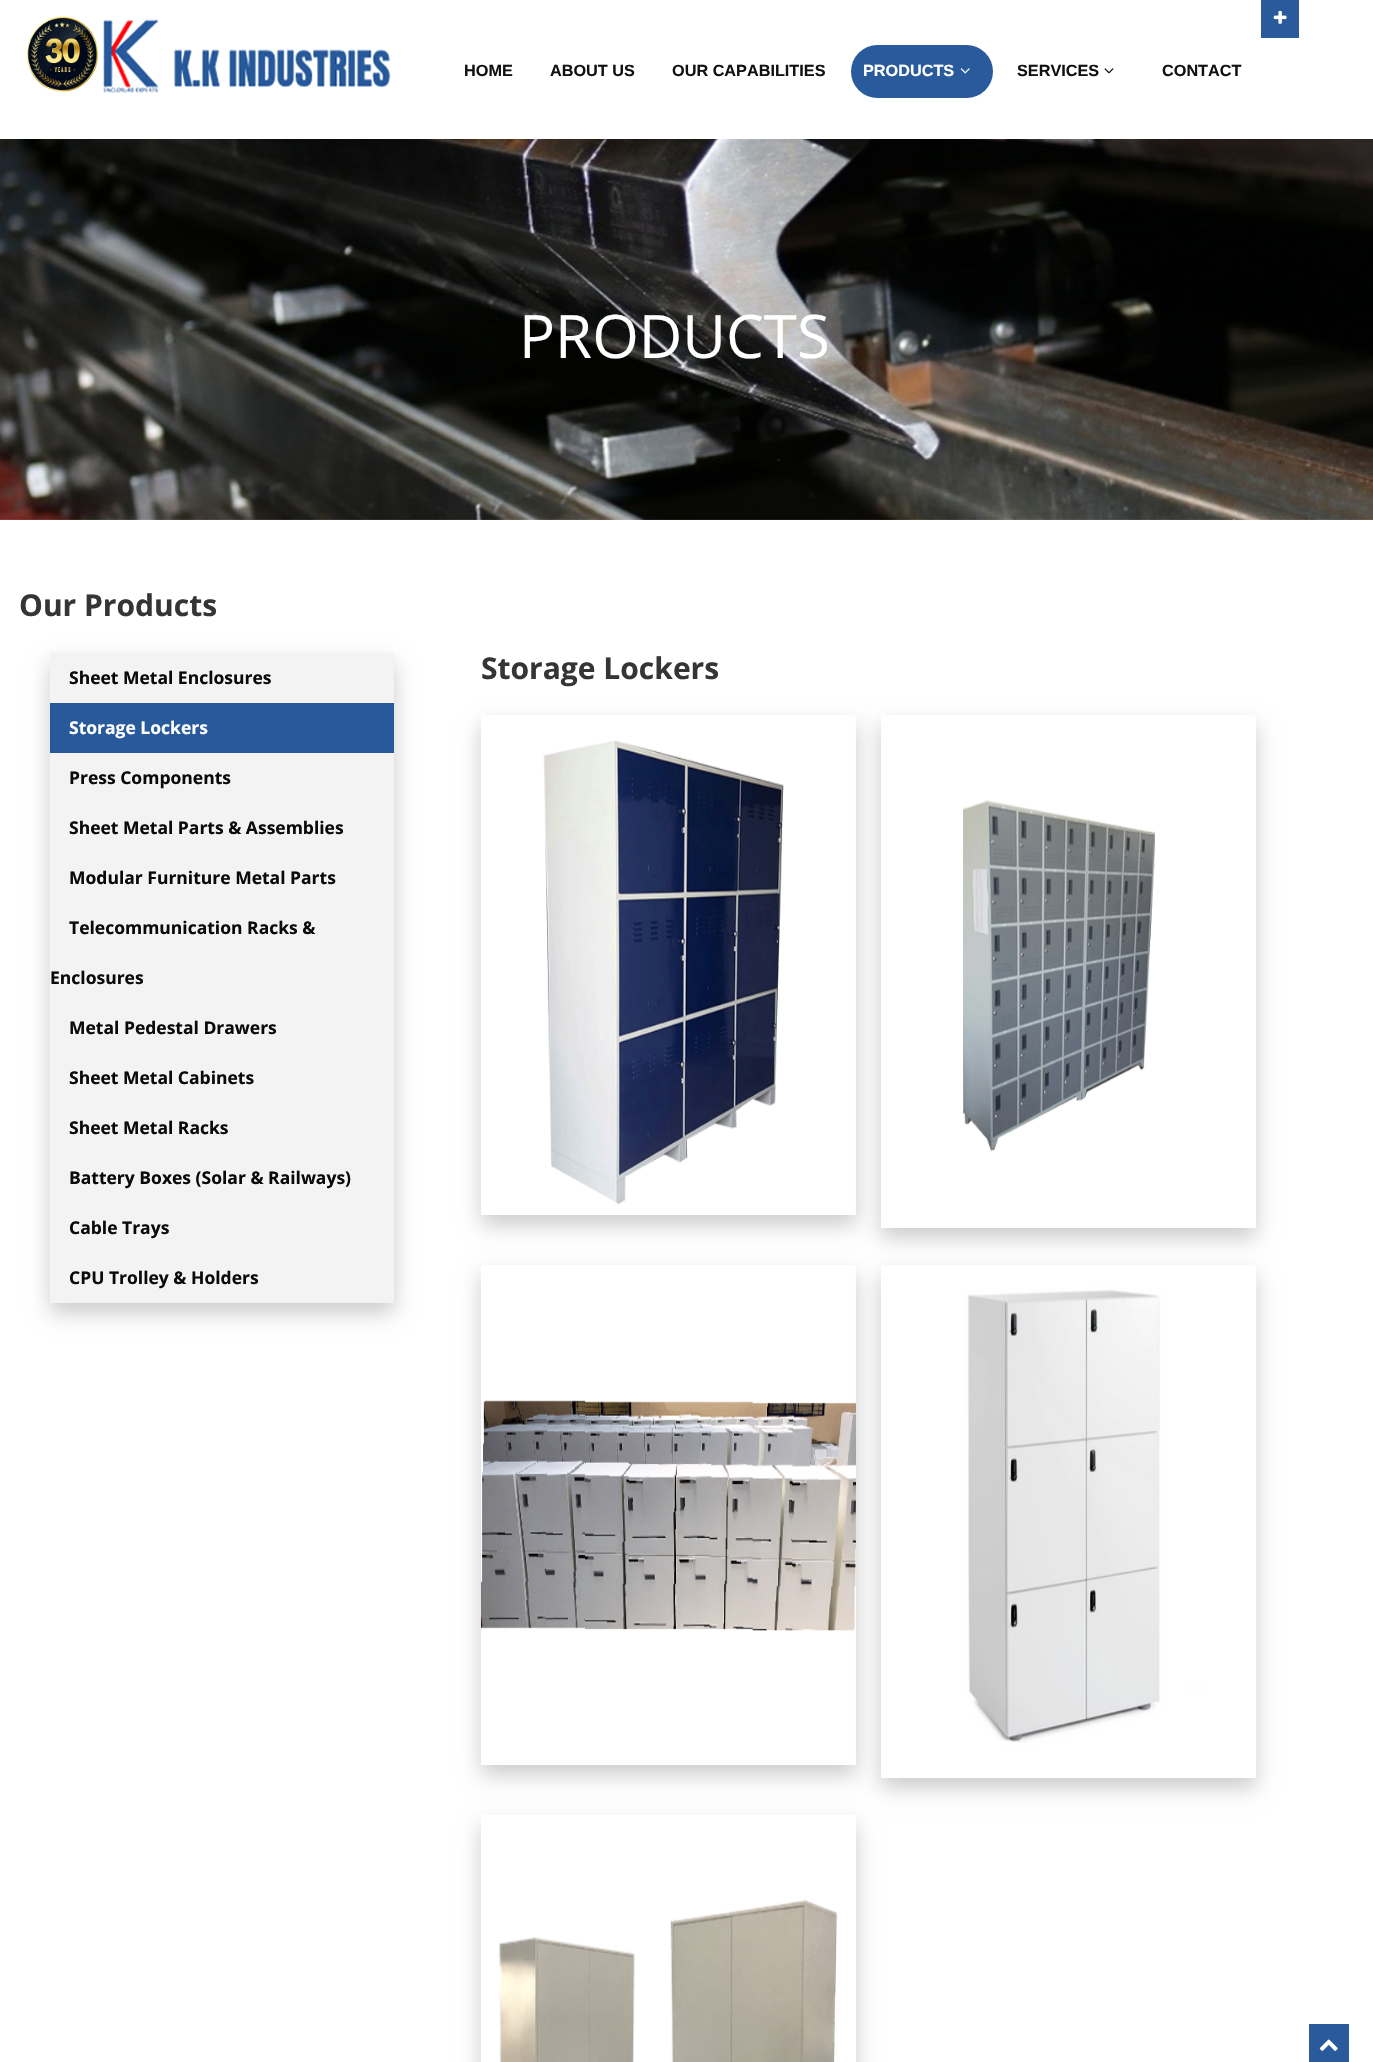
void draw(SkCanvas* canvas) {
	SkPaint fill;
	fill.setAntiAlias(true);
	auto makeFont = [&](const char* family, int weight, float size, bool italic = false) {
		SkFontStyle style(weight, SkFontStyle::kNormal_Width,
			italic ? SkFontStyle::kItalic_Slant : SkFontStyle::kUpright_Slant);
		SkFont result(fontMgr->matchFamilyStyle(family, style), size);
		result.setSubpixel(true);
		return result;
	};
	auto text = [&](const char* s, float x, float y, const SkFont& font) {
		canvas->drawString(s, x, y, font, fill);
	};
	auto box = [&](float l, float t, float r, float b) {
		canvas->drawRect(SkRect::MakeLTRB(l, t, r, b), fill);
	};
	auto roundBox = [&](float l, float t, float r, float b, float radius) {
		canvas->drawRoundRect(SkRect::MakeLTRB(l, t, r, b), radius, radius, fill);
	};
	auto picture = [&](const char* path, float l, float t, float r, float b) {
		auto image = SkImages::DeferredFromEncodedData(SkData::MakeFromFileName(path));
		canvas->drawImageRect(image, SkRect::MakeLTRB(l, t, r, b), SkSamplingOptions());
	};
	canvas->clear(0xFFFFFFFF);
	fill.setColor(0xFF285A9C);
	box(1261, 0, 1299, 38);
	picture("image0.png", 1273, 11, 1287, 24);
	picture("image1.png", 26, 16, 391, 94);
	roundBox(851, 45, 993, 98, 26.5f);
	picture("image2.png", 960, 68, 970, 74);
	picture("image3.png", 1104, 68, 1114, 74);
	picture("image4.png", 0, 139, 1373, 520);
	fill.setColor(0x33000000);
	fill.setMaskFilter(SkMaskFilter::MakeBlur(kNormal_SkBlurStyle, 10));
	canvas->drawRect(SkRect::MakeLTRB(50, 663, 394, 1313), fill);
	fill.setMaskFilter(nullptr);
	fill.setColor(0xFFF3F3F3);
	box(50, 653, 394, 1303);
	fill.setColor(0xFF28599B);
	box(50, 703, 394, 753);
	canvas->save();
	canvas->clipPath(SkPathBuilder(SkPathFillType::kEvenOdd).moveTo(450, 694).lineTo(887, 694).lineTo(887, 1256).lineTo(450, 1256).close().moveTo(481, 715).lineTo(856, 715).lineTo(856, 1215).lineTo(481, 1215).close().detach(), true);
	fill.setColor(0x33000000);
	fill.setMaskFilter(SkMaskFilter::MakeBlur(kNormal_SkBlurStyle, 10));
	canvas->drawRect(SkRect::MakeLTRB(481, 725, 856, 1225), fill);
	fill.setMaskFilter(nullptr);
	canvas->restore();
	picture("image5.png", 543, 740, 784, 1205);
	canvas->save();
	canvas->clipPath(SkPathBuilder(SkPathFillType::kEvenOdd).moveTo(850, 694).lineTo(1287, 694).lineTo(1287, 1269).lineTo(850, 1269).close().moveTo(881, 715).lineTo(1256, 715).lineTo(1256, 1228).lineTo(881, 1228).close().detach(), true);
	fill.setMaskFilter(SkMaskFilter::MakeBlur(kNormal_SkBlurStyle, 10));
	canvas->drawRect(SkRect::MakeLTRB(881, 725, 1256, 1238), fill);
	fill.setMaskFilter(nullptr);
	canvas->restore();
	picture("image6.png", 963, 800, 1156, 1152);
	canvas->save();
	canvas->clipPath(SkPathBuilder(SkPathFillType::kEvenOdd).moveTo(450, 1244).lineTo(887, 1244).lineTo(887, 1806).lineTo(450, 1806).close().moveTo(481, 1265).lineTo(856, 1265).lineTo(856, 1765).lineTo(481, 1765).close().detach(), true);
	fill.setMaskFilter(SkMaskFilter::MakeBlur(kNormal_SkBlurStyle, 10));
	canvas->drawRect(SkRect::MakeLTRB(481, 1275, 856, 1775), fill);
	fill.setMaskFilter(nullptr);
	canvas->restore();
	picture("image7.png", 481, 1400, 856, 1631);
	canvas->save();
	canvas->clipPath(SkPathBuilder(SkPathFillType::kEvenOdd).moveTo(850, 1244).lineTo(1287, 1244).lineTo(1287, 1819).lineTo(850, 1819).close().moveTo(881, 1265).lineTo(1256, 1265).lineTo(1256, 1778).lineTo(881, 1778).close().detach(), true);
	fill.setMaskFilter(SkMaskFilter::MakeBlur(kNormal_SkBlurStyle, 10));
	canvas->drawRect(SkRect::MakeLTRB(881, 1275, 1256, 1788), fill);
	fill.setMaskFilter(nullptr);
	canvas->restore();
	picture("image8.png", 881, 1282, 1257, 1765);
	canvas->save();
	canvas->clipPath(SkPathBuilder(SkPathFillType::kEvenOdd).moveTo(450, 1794).lineTo(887, 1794).lineTo(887, 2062).lineTo(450, 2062).close().moveTo(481, 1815).lineTo(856, 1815).lineTo(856, 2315).lineTo(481, 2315).close().detach(), true);
	fill.setMaskFilter(SkMaskFilter::MakeBlur(kNormal_SkBlurStyle, 10));
	canvas->drawRect(SkRect::MakeLTRB(481, 1825, 856, 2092), fill);
	fill.setMaskFilter(nullptr);
	canvas->restore();
	picture("image9.png", 499, 1899, 838, 2062);
	fill.setColor(0xFF285A9C);
	box(1309, 2024, 1349, 2062);
	picture("image10.png", 1319, 2039, 1338, 2051);
	auto font1 = makeFont("Liberation Sans", 700, 16.25f);
	fill.setColor(0xFF111111);
	text("HOME", 464, 76, font1);
	text("ABOUT US", 550, 76, font1);
	text("OUR CAPABILITIES", 672, 76, font1);
	fill.setColor(0xFFFFFFFF);
	text("PRODUCTS", 863, 76, font1);
	fill.setColor(0xFF111111);
	text("SERVICES", 1017, 76, font1);
	text("CONTACT", 1162, 76, font1);
	auto font2 = makeFont("Open Sans", 400, 60);
	fill.setColor(0xFFFFFFFF);
	text("PRODUCTS", 519, 358, font2);
	auto font3 = makeFont("Open Sans", 700, 30);
	fill.setColor(0xFF353535);
	text("Our Products", 19, 616, font3);
	auto font4 = makeFont("Open Sans", 700, 17.5f);
	fill.setColor(0xFF0A0A0A);
	text("Sheet Metal Enclosures", 69, 684, font4);
	fill.setColor(0xFFFFFFFF);
	text("Storage Lockers", 69, 734, font4);
	fill.setColor(0xFF0A0A0A);
	text("Press Components", 69, 784, font4);
	text("Sheet Metal Parts & Assemblies", 69, 834, font4);
	text("Modular Furniture Metal Parts", 69, 884, font4);
	text("Telecommunication Racks &", 69, 934, font4);
	text("Enclosures", 50, 984, font4);
	text("Metal Pedestal Drawers", 69, 1034, font4);
	text("Sheet Metal Cabinets", 69, 1084, font4);
	text("Sheet Metal Racks", 69, 1134, font4);
	text("Battery Boxes (Solar & Railways)", 69, 1184, font4);
	text("Cable Trays", 69, 1234, font4);
	text("CPU Trolley & Holders", 69, 1284, font4);
	fill.setColor(0xFF353535);
	text("Storage Lockers", 481, 679, font3);
}
